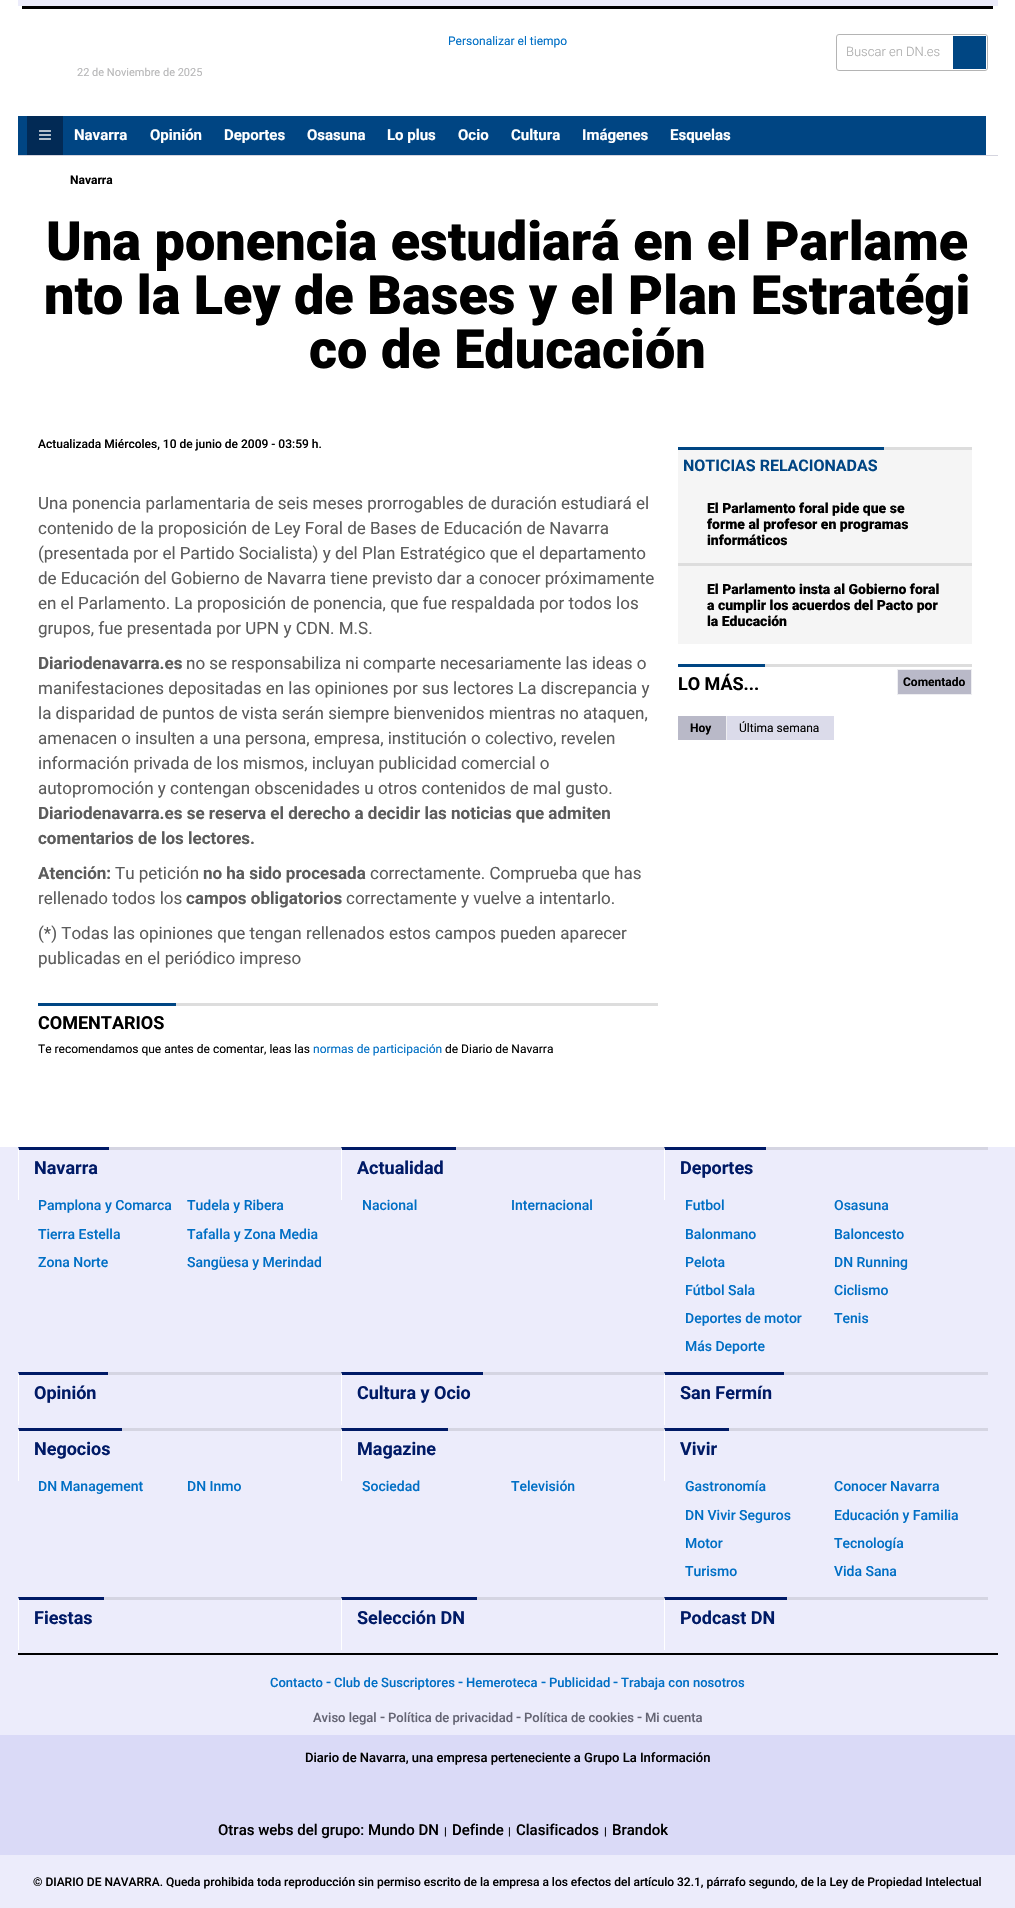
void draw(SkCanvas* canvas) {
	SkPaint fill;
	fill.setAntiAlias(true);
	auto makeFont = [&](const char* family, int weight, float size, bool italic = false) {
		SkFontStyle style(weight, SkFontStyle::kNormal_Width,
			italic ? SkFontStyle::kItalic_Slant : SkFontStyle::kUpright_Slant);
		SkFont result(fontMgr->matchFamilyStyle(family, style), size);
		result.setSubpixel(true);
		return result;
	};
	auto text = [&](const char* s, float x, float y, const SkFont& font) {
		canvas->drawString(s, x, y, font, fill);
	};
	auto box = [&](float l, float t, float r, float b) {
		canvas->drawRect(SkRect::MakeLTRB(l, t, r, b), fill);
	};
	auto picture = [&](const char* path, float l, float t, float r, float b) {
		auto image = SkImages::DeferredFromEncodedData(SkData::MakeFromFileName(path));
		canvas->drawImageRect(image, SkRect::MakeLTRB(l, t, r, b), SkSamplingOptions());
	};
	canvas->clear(0xFFFFFFFF);
	fill.setColor(0xFFECECFB);
	box(18, 0, 998, 6);
	fill.setColor(0xFF000000);
	box(22, 6, 993, 9);
	fill.setStyle(SkPaint::kStroke_Style);
	fill.setStrokeWidth(1);
	fill.setColor(0xFFB4B4B4);
	canvas->drawRoundRect(SkRect::MakeLTRB(836.5f, 34.5f, 987.5f, 70.5f), 2.5f, 2.5f, fill);
	fill.setStyle(SkPaint::kFill_Style);
	fill.setColor(0xFF004683);
	box(953, 36, 986, 69);
	fill.setColor(0xFFD5D5DF);
	box(18, 155, 998, 156);
	fill.setColor(0xFF004583);
	box(18, 116, 27, 155);
	fill.setColor(0xFF022A55);
	box(27, 116, 63, 155);
	picture("image0.png", 39, 130, 51, 140);
	fill.setColor(0xFF004583);
	box(63, 116, 986, 155);
	fill.setColor(0xFFDDDDDD);
	box(176, 1003, 658, 1006);
	fill.setColor(0xFF004683);
	box(38, 1003, 176, 1006);
	fill.setColor(0xFFF5F5F5);
	box(678, 450, 972, 644);
	fill.setColor(0xFFDDDDDD);
	box(884, 447, 972, 450);
	fill.setColor(0xFF004683);
	box(678, 447, 884, 450);
	fill.setColor(0xFFDDDDDD);
	box(678, 563, 972, 566);
	box(765, 664, 972, 667);
	fill.setColor(0xFF004683);
	box(678, 664, 765, 667);
	fill.setStyle(SkPaint::kStroke_Style);
	fill.setColor(0xFFEEEEF1);
	canvas->drawRect(SkRect::MakeLTRB(897.5f, 669.5f, 971.5f, 694.5f), fill);
	fill.setStyle(SkPaint::kFill_Style);
	fill.setColor(0xFFB9B9C8);
	box(898, 670, 971, 694);
	box(678, 716, 726, 740);
	fill.setColor(0xFFEEEEF1);
	box(726, 716, 727, 740);
	fill.setColor(0xFFDBDBEA);
	box(727, 716, 834, 740);
	fill.setColor(0xFFECECFB);
	box(0, 1147, 1015, 1908);
	fill.setColor(0xFFD5D5E2);
	box(18, 1147, 988, 1150);
	fill.setColor(0xFF001A66);
	canvas->drawPath(SkPathBuilder().moveTo(18, 1147).lineTo(109, 1147).lineTo(109, 1150).lineTo(19, 1150).close().detach(), fill);
	fill.setColor(0xFFFFFFFF);
	canvas->drawPath(SkPathBuilder().moveTo(18, 1200).lineTo(18, 1147).lineTo(19, 1150).lineTo(19, 1200).close().detach(), fill);
	fill.setColor(0xFF001A66);
	canvas->drawPath(SkPathBuilder().moveTo(341, 1147).lineTo(456, 1147).lineTo(456, 1150).lineTo(342, 1150).close().detach(), fill);
	fill.setColor(0xFFFFFFFF);
	canvas->drawPath(SkPathBuilder().moveTo(341, 1200).lineTo(341, 1147).lineTo(342, 1150).lineTo(342, 1200).close().detach(), fill);
	fill.setColor(0xFF001A66);
	canvas->drawPath(SkPathBuilder().moveTo(664, 1147).lineTo(766, 1147).lineTo(766, 1150).lineTo(665, 1150).close().detach(), fill);
	fill.setColor(0xFFFFFFFF);
	canvas->drawPath(SkPathBuilder().moveTo(664, 1200).lineTo(664, 1147).lineTo(665, 1150).lineTo(665, 1200).close().detach(), fill);
	fill.setColor(0xFFD5D5E2);
	box(18, 1372, 988, 1375);
	fill.setColor(0xFF001A66);
	canvas->drawPath(SkPathBuilder().moveTo(18, 1372).lineTo(108, 1372).lineTo(108, 1375).lineTo(19, 1375).close().detach(), fill);
	fill.setColor(0xFFFFFFFF);
	canvas->drawPath(SkPathBuilder().moveTo(18, 1425).lineTo(18, 1372).lineTo(19, 1375).lineTo(19, 1425).close().detach(), fill);
	fill.setColor(0xFF001A66);
	canvas->drawPath(SkPathBuilder().moveTo(341, 1372).lineTo(483, 1372).lineTo(483, 1375).lineTo(342, 1375).close().detach(), fill);
	fill.setColor(0xFFFFFFFF);
	canvas->drawPath(SkPathBuilder().moveTo(341, 1425).lineTo(341, 1372).lineTo(342, 1375).lineTo(342, 1425).close().detach(), fill);
	fill.setColor(0xFF001A66);
	canvas->drawPath(SkPathBuilder().moveTo(664, 1372).lineTo(784, 1372).lineTo(784, 1375).lineTo(665, 1375).close().detach(), fill);
	fill.setColor(0xFFFFFFFF);
	canvas->drawPath(SkPathBuilder().moveTo(664, 1425).lineTo(664, 1372).lineTo(665, 1375).lineTo(665, 1425).close().detach(), fill);
	fill.setColor(0xFFD5D5E2);
	box(18, 1428, 988, 1431);
	fill.setColor(0xFF001A66);
	canvas->drawPath(SkPathBuilder().moveTo(18, 1428).lineTo(122, 1428).lineTo(122, 1431).lineTo(19, 1431).close().detach(), fill);
	fill.setColor(0xFFFFFFFF);
	canvas->drawPath(SkPathBuilder().moveTo(18, 1481).lineTo(18, 1428).lineTo(19, 1431).lineTo(19, 1481).close().detach(), fill);
	fill.setColor(0xFF001A66);
	canvas->drawPath(SkPathBuilder().moveTo(341, 1428).lineTo(448, 1428).lineTo(448, 1431).lineTo(342, 1431).close().detach(), fill);
	fill.setColor(0xFFFFFFFF);
	canvas->drawPath(SkPathBuilder().moveTo(341, 1481).lineTo(341, 1428).lineTo(342, 1431).lineTo(342, 1481).close().detach(), fill);
	fill.setColor(0xFF001A66);
	canvas->drawPath(SkPathBuilder().moveTo(664, 1428).lineTo(729, 1428).lineTo(729, 1431).lineTo(665, 1431).close().detach(), fill);
	fill.setColor(0xFFFFFFFF);
	canvas->drawPath(SkPathBuilder().moveTo(664, 1481).lineTo(664, 1428).lineTo(665, 1431).lineTo(665, 1481).close().detach(), fill);
	fill.setColor(0xFFD5D5E2);
	box(18, 1597, 988, 1600);
	fill.setColor(0xFF001A66);
	canvas->drawPath(SkPathBuilder().moveTo(18, 1597).lineTo(104, 1597).lineTo(104, 1600).lineTo(19, 1600).close().detach(), fill);
	fill.setColor(0xFFFFFFFF);
	canvas->drawPath(SkPathBuilder().moveTo(18, 1650).lineTo(18, 1597).lineTo(19, 1600).lineTo(19, 1650).close().detach(), fill);
	fill.setColor(0xFF001A66);
	canvas->drawPath(SkPathBuilder().moveTo(341, 1597).lineTo(477, 1597).lineTo(477, 1600).lineTo(342, 1600).close().detach(), fill);
	fill.setColor(0xFFFFFFFF);
	canvas->drawPath(SkPathBuilder().moveTo(341, 1650).lineTo(341, 1597).lineTo(342, 1600).lineTo(342, 1650).close().detach(), fill);
	fill.setColor(0xFF001A66);
	canvas->drawPath(SkPathBuilder().moveTo(664, 1597).lineTo(787, 1597).lineTo(787, 1600).lineTo(665, 1600).close().detach(), fill);
	fill.setColor(0xFFFFFFFF);
	canvas->drawPath(SkPathBuilder().moveTo(664, 1650).lineTo(664, 1597).lineTo(665, 1600).lineTo(665, 1650).close().detach(), fill);
	fill.setColor(0xFF000000);
	box(18, 1653, 998, 1655);
	fill.setColor(0xFFDADAF7);
	box(0, 1735, 1015, 1855);
	auto font1 = makeFont("Roboto", 400, 12);
	fill.setColor(0xFF006FC5);
	text("Personalizar el tiempo", 448, 45, font1);
	auto font2 = makeFont("Roboto", 400, 11);
	fill.setColor(0xFFB7B7B8);
	text("22 de Noviembre de 2025", 77, 76, font2);
	auto font3 = makeFont("Roboto", 300, 13);
	fill.setColor(0xFFABABAB);
	text("Buscar en DN.es", 846, 56, font3);
	auto font4 = makeFont("Roboto", 700, 15);
	fill.setColor(0xFFFFFFFF);
	text("Navarra", 74, 140, font4);
	text("Opinión", 150, 140, font4);
	text("Deportes", 224, 140, font4);
	text("Osasuna", 307, 140, font4);
	text("Lo plus", 387, 140, font4);
	text("Ocio", 458, 140, font4);
	text("Cultura", 511, 140, font4);
	text("Imágenes", 582, 140, font4);
	text("Esquelas", 670, 140, font4);
	auto font5 = makeFont("Roboto", 700, 12);
	fill.setColor(0xFF000000);
	text("Navarra", 70, 184, font5);
	auto font6 = makeFont("Roboto", 900, 54);
	text("Una ponencia estudiará en el Parlame", 46, 260, font6);
	text("nto la Ley de Bases y el Plan Estratégi", 44, 314, font6);
	text("co de Educación", 309, 368, font6);
	auto font7 = makeFont("Roboto", 500, 12);
	text("Actualizada Miércoles, 10 de junio de 2009 - 03:59 h.", 38, 448, font7);
	auto font8 = makeFont("Roboto", 400, 17);
	fill.setColor(0xFF5C5C5C);
	text("Una ponencia parlamentaria de seis meses prorrogables de duración estudiará el", 38, 509, font8);
	text("contenido de la proposición de Ley Foral de Bases de Educación de Navarra", 38, 534, font8);
	text("(presentada por el Partido Socialista) y del Plan Estratégico que el departamento", 38, 559, font8);
	text("de Educación del Gobierno de Navarra tiene previsto dar a conocer próximamente", 38, 584, font8);
	text("en el Parlamento. La proposición de ponencia, que fue respaldada por todos los", 38, 609, font8);
	text("grupos, fue presentada por UPN y CDN. M.S.", 38, 634, font8);
	auto font9 = makeFont("Roboto", 700, 17);
	text("Diariodenavarra.es", 38, 669, font9);
	text("no se responsabiliza ni comparte necesariamente las ideas o", 186, 669, font8);
	text("manifestaciones depositadas en las opiniones por sus lectores La discrepancia y", 38, 694, font8);
	text("la disparidad de puntos de vista serán siempre bienvenidos mientras no ataquen,", 38, 719, font8);
	text("amenacen o insulten a una persona, empresa, institución o colectivo, revelen", 38, 744, font8);
	text("información privada de los mismos, incluyan publicidad comercial o", 38, 769, font8);
	text("autopromoción y contengan obscenidades u otros contenidos de mal gusto.", 38, 794, font8);
	text("Diariodenavarra.es se reserva el derecho a decidir las noticias que admiten", 38, 819, font9);
	text("comentarios de los lectores.", 38, 844, font9);
	text("Atención:", 38, 879, font9);
	text("Tu petición", 115, 879, font8);
	text("no ha sido procesada", 203, 879, font9);
	text("correctamente. Comprueba que has", 370, 879, font8);
	text("rellenado todos los", 38, 904, font8);
	text("campos obligatorios", 186, 904, font9);
	text("correctamente y vuelve a intentarlo.", 346, 904, font8);
	text("(*) Todas las opiniones que tengan rellenados estos campos pueden aparecer", 38, 939, font8);
	text("publicadas en el periódico impreso", 38, 964, font8);
	auto font10 = makeFont("Roboto", 700, 18);
	fill.setColor(0xFF000000);
	text("COMENTARIOS", 38, 1029, font10);
	text("Te recomendamos que antes de comentar, leas las", 38, 1053, font1);
	fill.setColor(0xFF006FC5);
	text("normas de participación", 313, 1053, font1);
	fill.setColor(0xFF000000);
	text("de Diario de Navarra", 445, 1053, font1);
	auto font11 = makeFont("Roboto", 700, 16);
	fill.setColor(0xFF004583);
	text("NOTICIAS RELACIONADAS", 683, 471, font11);
	auto font12 = makeFont("Roboto", 900, 14);
	fill.setColor(0xFF000000);
	text("El Parlamento foral pide que se", 707, 513, font12);
	text("forme al profesor en programas", 707, 529, font12);
	text("informáticos", 707, 545, font12);
	text("El Parlamento insta al Gobierno foral", 707, 594, font12);
	text("a cumplir los acuerdos del Pacto por", 707, 610, font12);
	text("la Educación", 707, 626, font12);
	text("LO MÁS...", 678, 690, font10);
	text("Comentado", 903, 686, font5);
	text("Hoy", 690, 732, font5);
	text("Última semana", 739, 732, font1);
	fill.setColor(0xFF001A66);
	text("Navarra", 34, 1174, font10);
	auto font13 = makeFont("Roboto", 500, 14);
	fill.setColor(0xFF006FC5);
	text("Pamplona y Comarca", 38, 1210, font13);
	text("Tudela y Ribera", 187, 1210, font13);
	text("Tierra Estella", 38, 1239, font13);
	text("Tafalla y Zona Media", 187, 1239, font13);
	text("Zona Norte", 38, 1267, font13);
	text("Sangüesa y Merindad", 187, 1267, font13);
	fill.setColor(0xFF001A66);
	text("Actualidad", 357, 1174, font10);
	fill.setColor(0xFF006FC5);
	text("Nacional", 362, 1210, font13);
	text("Internacional", 511, 1210, font13);
	fill.setColor(0xFF001A66);
	text("Deportes", 680, 1174, font10);
	fill.setColor(0xFF006FC5);
	text("Futbol", 685, 1210, font13);
	text("Osasuna", 834, 1210, font13);
	text("Balonmano", 685, 1239, font13);
	text("Baloncesto", 834, 1239, font13);
	text("Pelota", 685, 1267, font13);
	text("DN Running", 834, 1267, font13);
	text("Fútbol Sala", 685, 1295, font13);
	text("Ciclismo", 834, 1295, font13);
	text("Deportes de motor", 685, 1323, font13);
	text("Tenis", 834, 1323, font13);
	text("Más Deporte", 685, 1351, font13);
	fill.setColor(0xFF001A66);
	text("Opinión", 34, 1399, font10);
	text("Cultura y Ocio", 357, 1399, font10);
	text("San Fermín", 680, 1399, font10);
	text("Negocios", 34, 1455, font10);
	fill.setColor(0xFF006FC5);
	text("DN Management", 38, 1491, font13);
	text("DN Inmo", 187, 1491, font13);
	fill.setColor(0xFF001A66);
	text("Magazine", 357, 1455, font10);
	fill.setColor(0xFF006FC5);
	text("Sociedad", 362, 1491, font13);
	text("Televisión", 511, 1491, font13);
	fill.setColor(0xFF001A66);
	text("Vivir", 680, 1455, font10);
	fill.setColor(0xFF006FC5);
	text("Gastronomía", 685, 1491, font13);
	text("Conocer Navarra", 834, 1491, font13);
	text("DN Vivir Seguros", 685, 1520, font13);
	text("Educación y Familia", 834, 1520, font13);
	text("Motor", 685, 1548, font13);
	text("Tecnología", 834, 1548, font13);
	text("Turismo", 685, 1576, font13);
	text("Vida Sana", 834, 1576, font13);
	fill.setColor(0xFF001A66);
	text("Fiestas", 34, 1624, font10);
	text("Selección DN", 357, 1624, font10);
	text("Podcast DN", 680, 1624, font10);
	auto font14 = makeFont("Roboto", 500, 13);
	fill.setColor(0xFF006FC5);
	text("Contacto", 270, 1687, font14);
	auto font15 = makeFont("Roboto", 500, 15);
	text("-", 326, 1687, font15);
	text("Club de Suscriptores", 334, 1687, font14);
	text("-", 458, 1687, font15);
	text("Hemeroteca", 466, 1687, font14);
	text("-", 541, 1687, font15);
	text("Publicidad", 549, 1687, font14);
	text("-", 613, 1687, font15);
	text("Trabaja con nosotros", 621, 1687, font14);
	fill.setColor(0xFF646473);
	text("Aviso legal", 313, 1722, font14);
	text("-", 380, 1722, font15);
	text("Política de privacidad", 388, 1722, font14);
	text("-", 516, 1722, font15);
	text("Política de cookies", 524, 1722, font14);
	text("-", 637, 1722, font15);
	text("Mi cuenta", 645, 1722, font14);
	fill.setColor(0xFF000000);
	text("Diario de Navarra, una empresa perteneciente a Grupo La Información", 305, 1762, font14);
	text("Otras webs del grupo: Mundo DN", 218, 1835, font15);
	auto font16 = makeFont("Roboto", 700, 11);
	text("|", 444, 1835, font16);
	text("Definde", 452, 1835, font15);
	text("|", 508, 1835, font16);
	text("Clasificados", 516, 1835, font15);
	text("|", 604, 1835, font16);
	text("Brandok", 612, 1835, font15);
	text("© DIARIO DE NAVARRA. Queda prohibida toda reproducción sin permiso escrito de la empresa a los efectos del artículo 32.1, párrafo segundo, de la Ley de Propiedad Intelectual", 33, 1886, font7);
}
